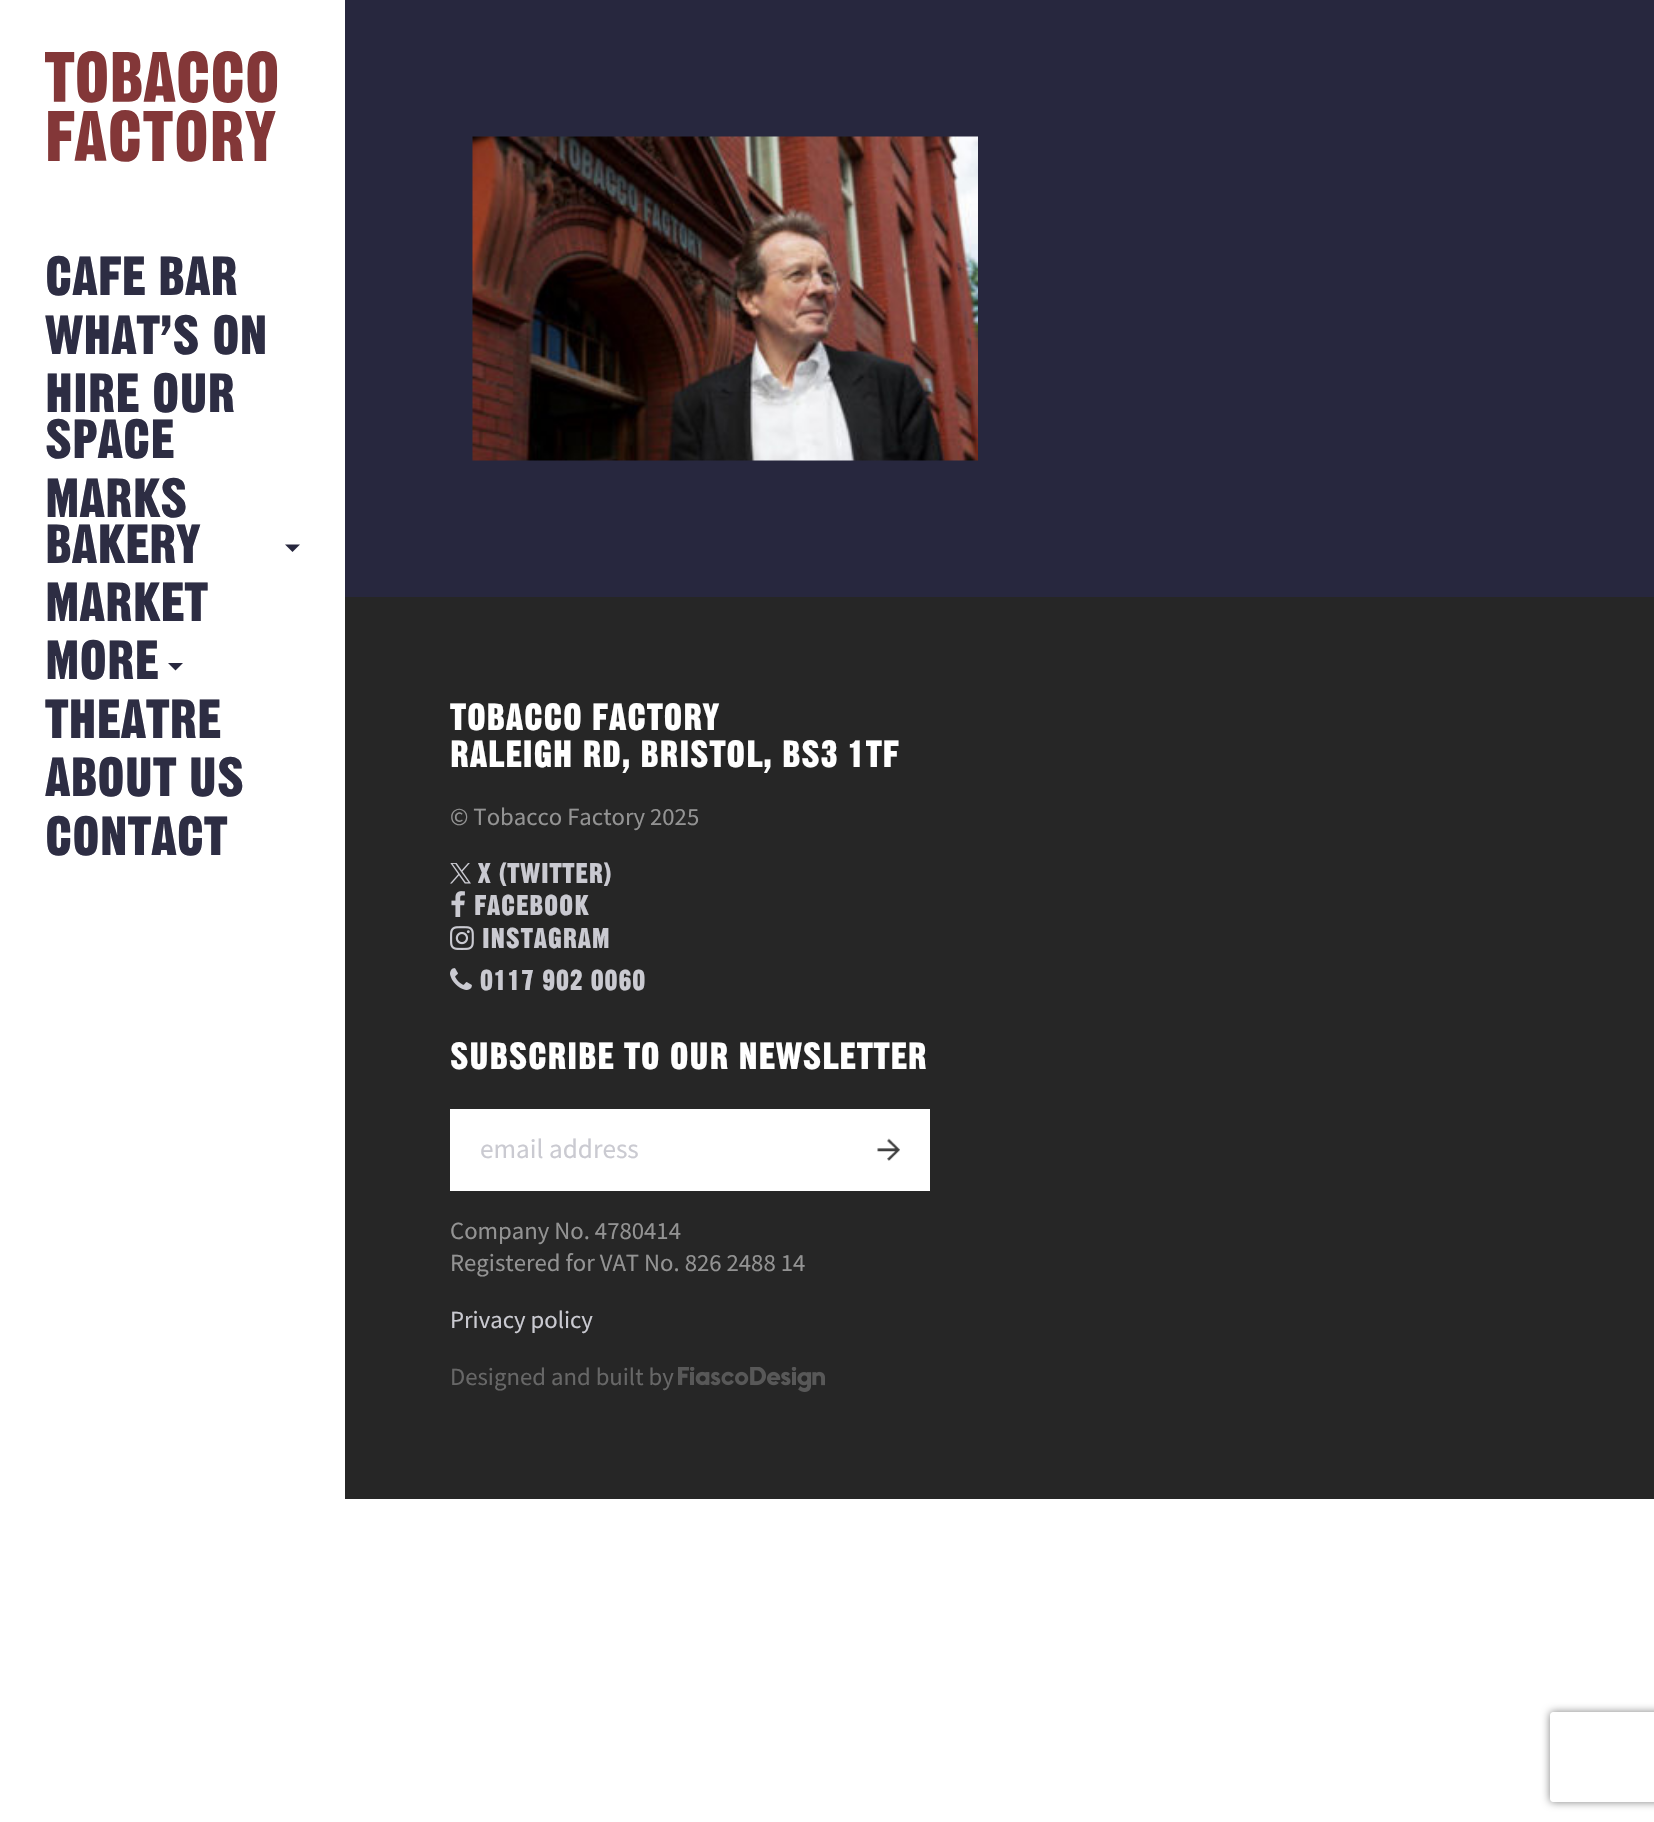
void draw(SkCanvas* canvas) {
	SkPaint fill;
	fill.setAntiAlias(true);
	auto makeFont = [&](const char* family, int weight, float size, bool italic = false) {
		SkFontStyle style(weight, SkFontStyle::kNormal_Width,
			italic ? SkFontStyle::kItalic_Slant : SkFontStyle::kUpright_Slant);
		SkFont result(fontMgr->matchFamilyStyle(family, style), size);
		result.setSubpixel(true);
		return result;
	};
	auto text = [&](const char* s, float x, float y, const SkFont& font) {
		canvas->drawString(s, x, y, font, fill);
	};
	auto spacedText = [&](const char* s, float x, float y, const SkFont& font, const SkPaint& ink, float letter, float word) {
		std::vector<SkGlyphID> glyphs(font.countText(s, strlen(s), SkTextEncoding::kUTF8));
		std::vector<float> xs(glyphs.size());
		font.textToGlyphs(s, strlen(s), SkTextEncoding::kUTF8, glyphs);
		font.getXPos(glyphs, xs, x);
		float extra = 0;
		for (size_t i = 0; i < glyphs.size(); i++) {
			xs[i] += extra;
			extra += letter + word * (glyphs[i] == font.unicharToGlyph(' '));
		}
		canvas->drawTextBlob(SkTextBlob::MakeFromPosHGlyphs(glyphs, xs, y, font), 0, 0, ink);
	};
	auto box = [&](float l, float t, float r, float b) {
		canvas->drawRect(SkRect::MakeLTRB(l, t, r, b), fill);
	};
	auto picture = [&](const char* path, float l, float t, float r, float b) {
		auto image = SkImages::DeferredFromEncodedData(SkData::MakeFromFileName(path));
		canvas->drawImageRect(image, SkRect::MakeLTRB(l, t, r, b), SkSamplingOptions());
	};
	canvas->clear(0xFFFFFFFF);
	picture("image0.png", 45, 51, 278, 162);
	fill.setColor(0xFF27273E);
	canvas->drawPath(SkPathBuilder().moveTo(285, 544.5f).lineTo(300, 544.5f).lineTo(292.5f, 552).close().detach(), fill);
	canvas->drawPath(SkPathBuilder().moveTo(168, 663).lineTo(183, 663).lineTo(175.5f, 670.5f).close().detach(), fill);
	box(345, 0, 1654, 597);
	picture("image1.png", 472, 136, 978, 461);
	fill.setColor(0xFF262626);
	box(345, 597, 1654, 1499);
	picture("image2.png", 450, 863, 471, 884);
	picture("image3.png", 451, 891, 465, 917);
	picture("image4.png", 450, 926, 474, 950);
	picture("image5.png", 450, 968, 472, 990);
	fill.setColor(0xFFFFFFFF);
	box(450, 1109, 930, 1191);
	picture("image6.png", 877, 1138, 900, 1161);
	picture("image7.png", 678, 1367, 825, 1392);
	canvas->save();
	canvas->clipPath(SkPathBuilder(SkPathFillType::kEvenOdd).moveTo(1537, 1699).lineTo(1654, 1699).lineTo(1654, 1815).lineTo(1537, 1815).close().moveTo(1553, 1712).lineTo(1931, 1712).cubicTo(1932.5f, 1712, 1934, 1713.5f, 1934, 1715).lineTo(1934, 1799).cubicTo(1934, 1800.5f, 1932.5f, 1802, 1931, 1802).lineTo(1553, 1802).cubicTo(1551.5f, 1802, 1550, 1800.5f, 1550, 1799).lineTo(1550, 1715).cubicTo(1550, 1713.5f, 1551.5f, 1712, 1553, 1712).close().detach(), true);
	fill.setColor(0xFF808080);
	fill.setMaskFilter(SkMaskFilter::MakeBlur(kNormal_SkBlurStyle, 4));
	canvas->drawRoundRect(SkRect::MakeLTRB(1550, 1712, 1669, 1802), 3, 3, fill);
	fill.setMaskFilter(nullptr);
	canvas->restore();
	auto font1 = makeFont("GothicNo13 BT", 400, 54);
	fill.setColor(0xFF2D2D43);
	text("CAFE BAR", 45, 295, font1);
	text("WHAT’S ON", 45, 354, font1);
	text("HIRE OUR", 45, 412, font1);
	text("SPACE", 45, 458, font1);
	text("MARKS", 45, 517, font1);
	text("BAKERY", 45, 563, font1);
	text("MARKET", 45, 621, font1);
	text("MORE", 45, 679, font1);
	text("THEATRE", 45, 738, font1);
	text("ABOUT US", 45, 796, font1);
	text("CONTACT", 45, 855, font1);
	auto font2 = makeFont("GothicNo13 BT", 400, 37.1f);
	fill.setColor(0xFFFFFFFF);
	spacedText("TOBACCO FACTORY", 450, 730, font2, fill, 0.75f, 0);
	spacedText("RALEIGH RD, BRISTOL, BS3 1TF", 450, 767, font2, fill, 0.75f, 0);
	auto font3 = makeFont("Source Sans Pro", 400, 24.75f);
	fill.setColor(0xFF939393);
	text("© Tobacco Factory 2025", 450, 825, font3);
	auto font4 = makeFont("GothicNo13 BT", 400, 28);
	fill.setColor(0xFFCACAD1);
	spacedText("X (TWITTER)", 478, 883, font4, fill, 0.8f, 0);
	spacedText("FACEBOOK", 474, 915, font4, fill, 0.8f, 0);
	spacedText("INSTAGRAM", 482, 948, font4, fill, 0.8f, 0);
	spacedText("0117 902 0060", 480, 990, font4, fill, 0.8f, 0);
	fill.setColor(0xFFFFFFFF);
	spacedText("SUBSCRIBE TO OUR NEWSLETTER", 450, 1069, font2, fill, 0.75f, 0);
	auto font5 = makeFont("Source Sans Pro", 400, 27.25f);
	fill.setColor(0xFFCACAD1);
	text("email address", 480, 1158, font5);
	fill.setColor(0xFF939393);
	text("Company No. 4780414", 450, 1239, font3);
	text("Registered for VAT No. 826 2488 14", 450, 1271, font3);
	fill.setColor(0xFFCACAD1);
	text("Privacy policy", 450, 1328, font3);
	fill.setColor(0xFF676767);
	text("Designed and built by", 450, 1385, font3);
}
